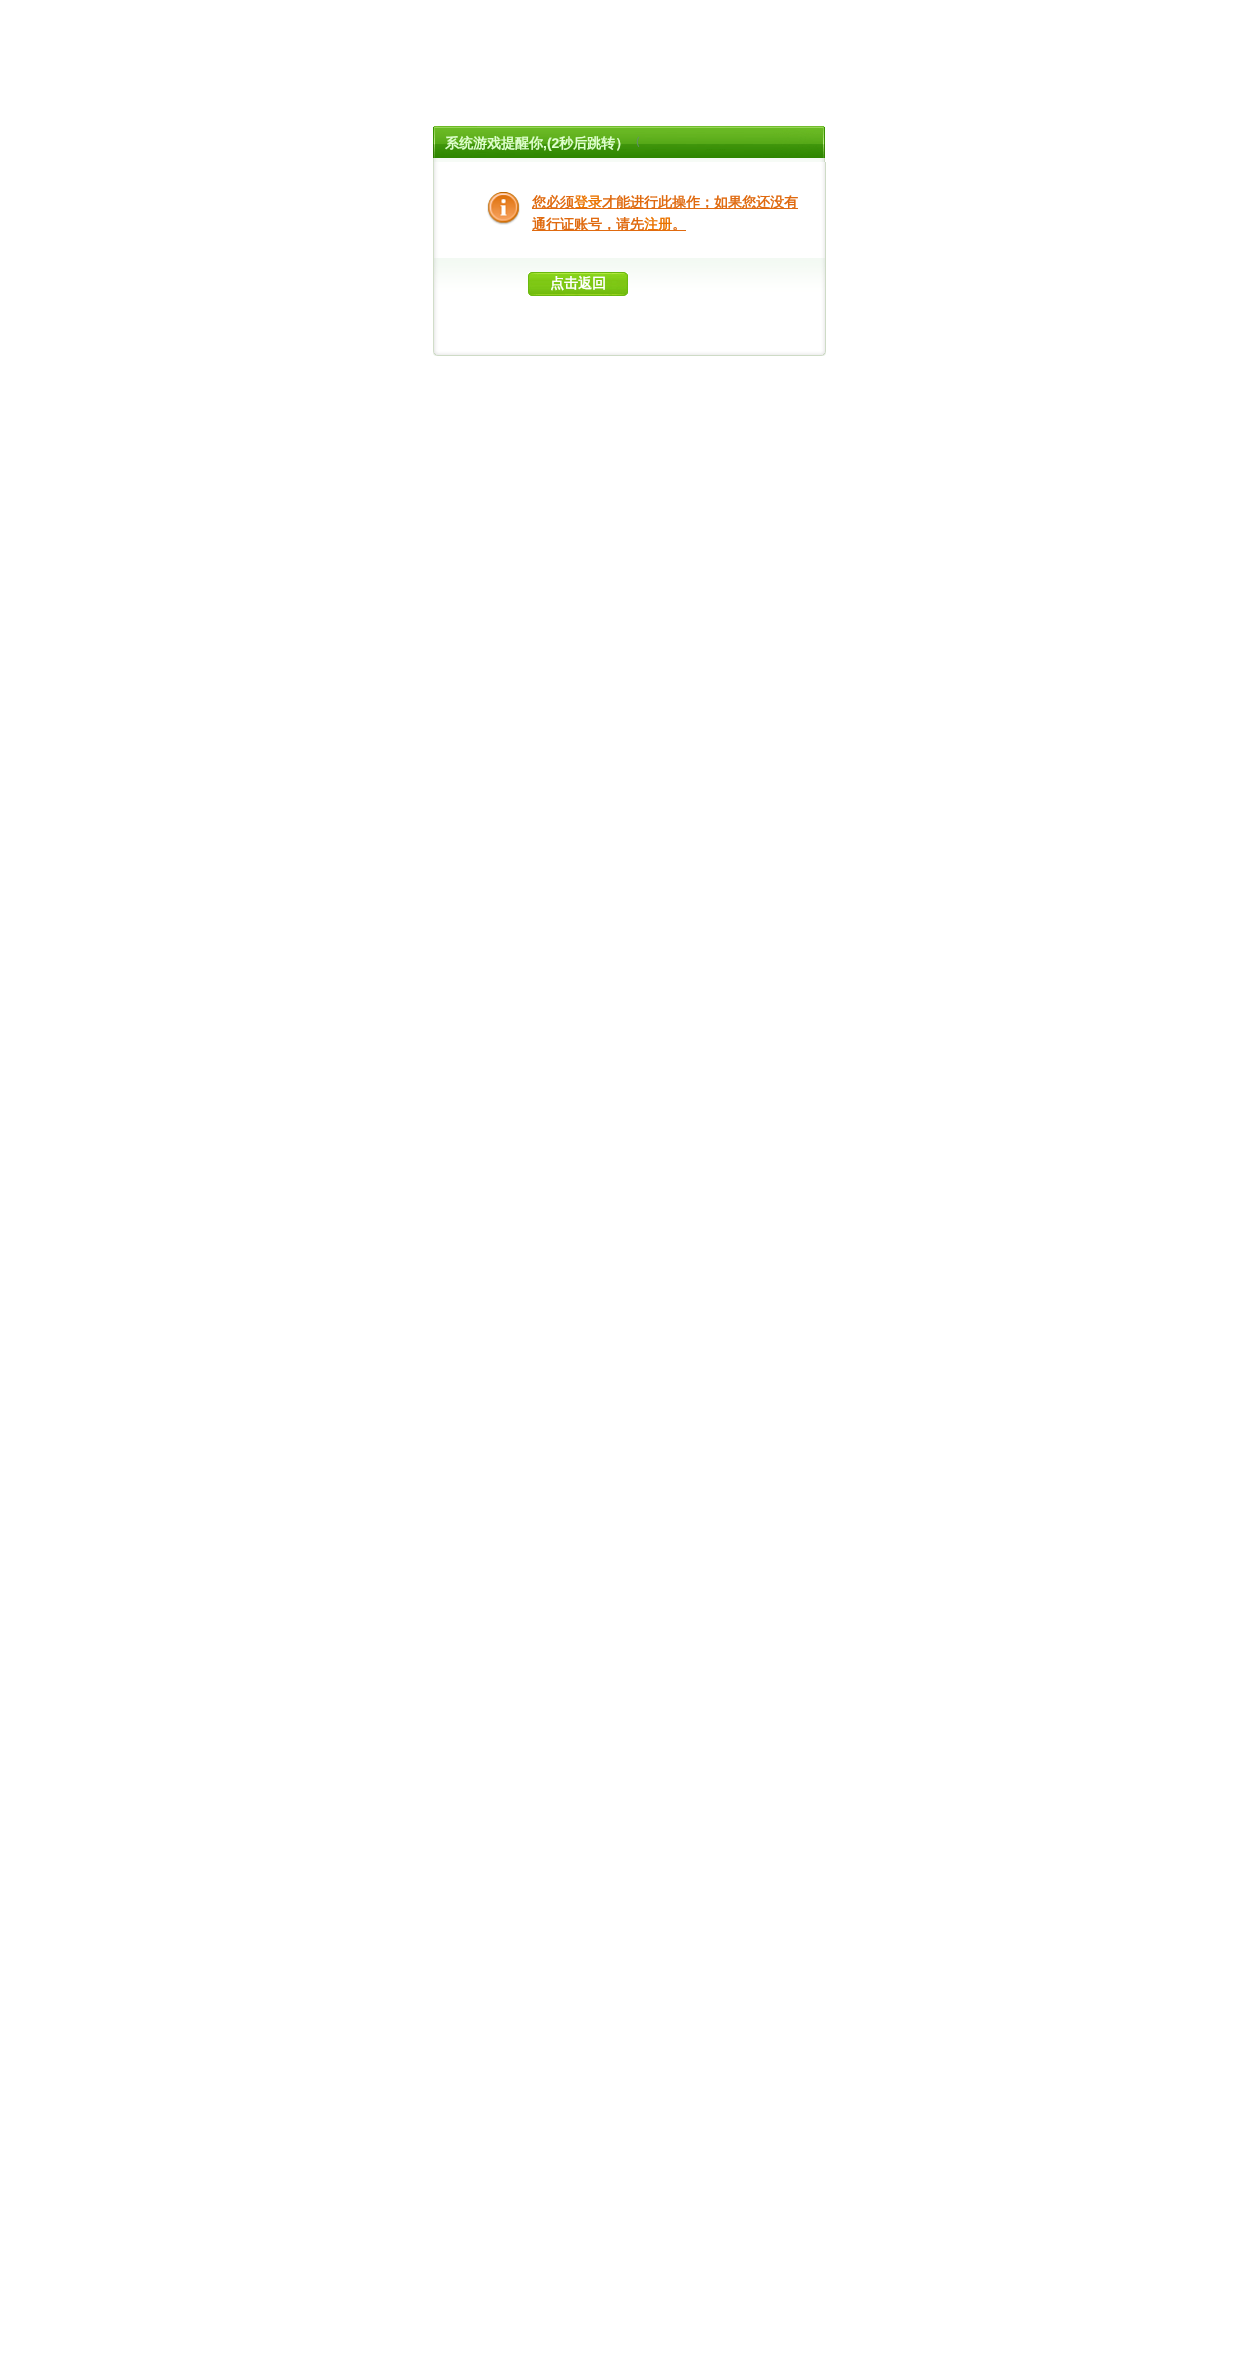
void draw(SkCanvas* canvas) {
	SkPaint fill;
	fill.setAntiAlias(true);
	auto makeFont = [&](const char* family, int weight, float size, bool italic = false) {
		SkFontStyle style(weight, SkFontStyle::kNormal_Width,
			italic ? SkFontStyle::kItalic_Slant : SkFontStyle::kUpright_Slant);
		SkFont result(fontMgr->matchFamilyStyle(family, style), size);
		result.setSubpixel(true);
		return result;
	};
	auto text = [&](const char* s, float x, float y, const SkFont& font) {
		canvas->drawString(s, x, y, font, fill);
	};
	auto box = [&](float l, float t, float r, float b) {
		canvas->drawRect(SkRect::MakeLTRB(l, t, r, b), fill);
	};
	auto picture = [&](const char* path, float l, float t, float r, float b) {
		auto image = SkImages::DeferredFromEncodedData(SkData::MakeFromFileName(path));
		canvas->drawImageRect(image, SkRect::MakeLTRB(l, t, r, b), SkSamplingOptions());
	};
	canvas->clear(0xFFFFFFFF);
	picture("image0.png", 433, 126, 825, 162);
	picture("image1.png", 433, 162, 826, 356);
	picture("image2.png", 487, 192, 520, 225);
	fill.setColor(0xFFE06A0F);
	box(532, 208, 798, 209);
	box(532, 230, 686, 231);
	picture("image3.png", 528, 272, 628, 296);
	auto font1 = makeFont("WenQuanYi Zen Hei", 700, 14);
	fill.setColor(0xFFDFFFCE);
	text("系统游戏提醒你", 445, 148, font1);
	auto font2 = makeFont("Liberation Sans", 700, 14);
	text(",(2", 543, 148, font2);
	text("秒后跳转）", 559, 148, font1);
	auto font3 = makeFont("WenQuanYi Zen Hei", 500, 12);
	fill.setColor(0xFF628E6E);
	text("（", 629, 145, font3);
	fill.setColor(0xFFE06A0F);
	text("您必须", 532, 207, font1);
	fill.setColor(0xFFEB7400);
	text("登录", 574, 207, font1);
	fill.setColor(0xFFE06A0F);
	text("才能进行此操作；如果您还没有", 602, 207, font1);
	text("通行证账号，请先", 532, 229, font1);
	fill.setColor(0xFFEB7400);
	text("注册", 644, 229, font1);
	fill.setColor(0xFFE06A0F);
	text("。", 672, 229, font1);
	fill.setColor(0xFFFFFFFF);
	text("点击返回", 550, 288, font1);
}
